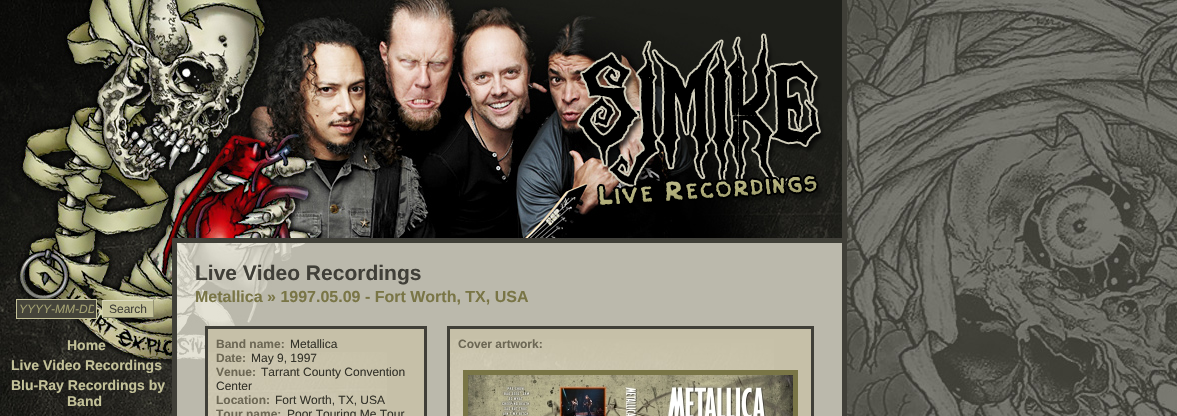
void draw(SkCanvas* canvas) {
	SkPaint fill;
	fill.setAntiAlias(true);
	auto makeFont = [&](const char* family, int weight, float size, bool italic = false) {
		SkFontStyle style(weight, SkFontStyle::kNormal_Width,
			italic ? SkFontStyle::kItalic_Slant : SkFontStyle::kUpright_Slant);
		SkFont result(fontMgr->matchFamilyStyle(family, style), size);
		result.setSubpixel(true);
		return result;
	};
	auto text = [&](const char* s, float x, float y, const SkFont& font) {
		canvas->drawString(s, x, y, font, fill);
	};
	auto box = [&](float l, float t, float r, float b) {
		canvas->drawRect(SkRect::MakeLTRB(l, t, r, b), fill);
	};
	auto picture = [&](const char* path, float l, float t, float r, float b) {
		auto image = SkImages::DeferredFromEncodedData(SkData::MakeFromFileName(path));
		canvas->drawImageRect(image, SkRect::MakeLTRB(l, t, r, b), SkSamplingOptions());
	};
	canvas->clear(0xFFFFFFFF);
	picture("image0.png", 847, 0, 1177, 416);
	fill.setColor(0xFFBBB9AC);
	box(177, 243, 842, 416);
	picture("image1.png", 172, 243, 177, 416);
	fill.setColor(0xFF403F38);
	box(842, 0, 847, 416);
	picture("image2.png", 0, 0, 842, 243);
	picture("image3.png", 577, 33, 824, 205);
	picture("image4.png", 0, 243, 172, 416);
	fill.setColor(0xFF45443A);
	canvas->drawRect(SkRect::MakeLTRB(16.5f, 299.5f, 96.5f, 318.5f), fill);
	fill.setStyle(SkPaint::kStroke_Style);
	fill.setStrokeWidth(1);
	fill.setColor(0xFFC4C299);
	canvas->drawRect(SkRect::MakeLTRB(16.5f, 299.5f, 96.5f, 318.5f), fill);
	fill.setStyle(SkPaint::kFill_Style);
	box(103, 301, 153, 317);
	fill.setColor(0xFFDDDCC4);
	box(102, 300, 154, 301);
	fill.setColor(0xFF949273);
	box(153, 300, 154, 318);
	fill.setColor(0xFF78775E);
	box(102, 317, 154, 318);
	fill.setColor(0xFFD0CFAF);
	box(102, 300, 103, 318);
	picture("image5.png", 177, 243, 305, 360);
	fill.setColor(0xFFC6C0A8);
	box(208, 329, 424, 416);
	picture("image6.png", 208, 352, 387, 416);
	fill.setStyle(SkPaint::kStroke_Style);
	fill.setStrokeWidth(3);
	fill.setColor(0xFF403F38);
	canvas->drawRect(SkRect::MakeLTRB(206.5f, 327.5f, 425.5f, 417.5f), fill);
	fill.setStyle(SkPaint::kFill_Style);
	fill.setColor(0xFFC6C0A8);
	box(450, 329, 811, 416);
	picture("image7.png", 450, 339, 774, 416);
	fill.setStyle(SkPaint::kStroke_Style);
	fill.setColor(0xFF403F38);
	canvas->drawRect(SkRect::MakeLTRB(448.5f, 327.5f, 812.5f, 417.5f), fill);
	fill.setStrokeWidth(5);
	fill.setColor(0xFF797546);
	canvas->drawRect(SkRect::MakeLTRB(465.5f, 372.5f, 795.5f, 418.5f), fill);
	picture("image8.png", 468, 375, 793, 416);
	canvas->save();
	canvas->clipRect(SkRect::MakeLTRB(19, 302, 94, 316));
	auto font1 = makeFont("Liberation Sans", 400, 12, true);
	fill.setStyle(SkPaint::kFill_Style);
	fill.setColor(0xFFA2A071);
	text("YYYY-MM-DD", 19, 313, font1);
	canvas->restore();
	auto font2 = makeFont("Liberation Sans", 400, 12);
	fill.setColor(0xFF403F38);
	text("Search", 109, 313, font2);
	auto font3 = makeFont("Liberation Sans", 700, 14);
	fill.setColor(0xFFC4C299);
	text("Home", 67, 350, font3);
	text("Live Video Recordings", 11, 370, font3);
	text("Blu-Ray Recordings by", 11, 390, font3);
	text("Band", 67, 406, font3);
	auto font4 = makeFont("Liberation Sans", 700, 21);
	fill.setColor(0xFF403F38);
	text("Live Video Recordings", 195, 280, font4);
	auto font5 = makeFont("Liberation Sans", 700, 16);
	fill.setColor(0xFF797546);
	text("Metallica » 1997.05.09 - Fort Worth, TX, USA", 195, 302, font5);
	auto font6 = makeFont("Liberation Sans", 700, 12);
	fill.setColor(0xFF6C6754);
	text("Band name:", 216, 348, font6);
	fill.setColor(0xFF34332A);
	text("Metallica", 290, 348, font2);
	fill.setColor(0xFF6C6754);
	text("Date:", 216, 362, font6);
	fill.setColor(0xFF34332A);
	text("May 9, 1997", 251, 362, font2);
	fill.setColor(0xFF6C6754);
	text("Venue:", 216, 376, font6);
	fill.setColor(0xFF34332A);
	text("Tarrant County Convention", 261, 376, font2);
	text("Center", 216, 390, font2);
	fill.setColor(0xFF6C6754);
	text("Location:", 216, 404, font6);
	fill.setColor(0xFF34332A);
	text("Fort Worth, TX, USA", 275, 404, font2);
	fill.setColor(0xFF6C6754);
	text("Tour name:", 216, 418, font6);
	fill.setColor(0xFF34332A);
	text("Poor Touring Me Tour", 287, 418, font2);
	fill.setColor(0xFF6C6754);
	text("Cover artwork:", 458, 348, font6);
}
